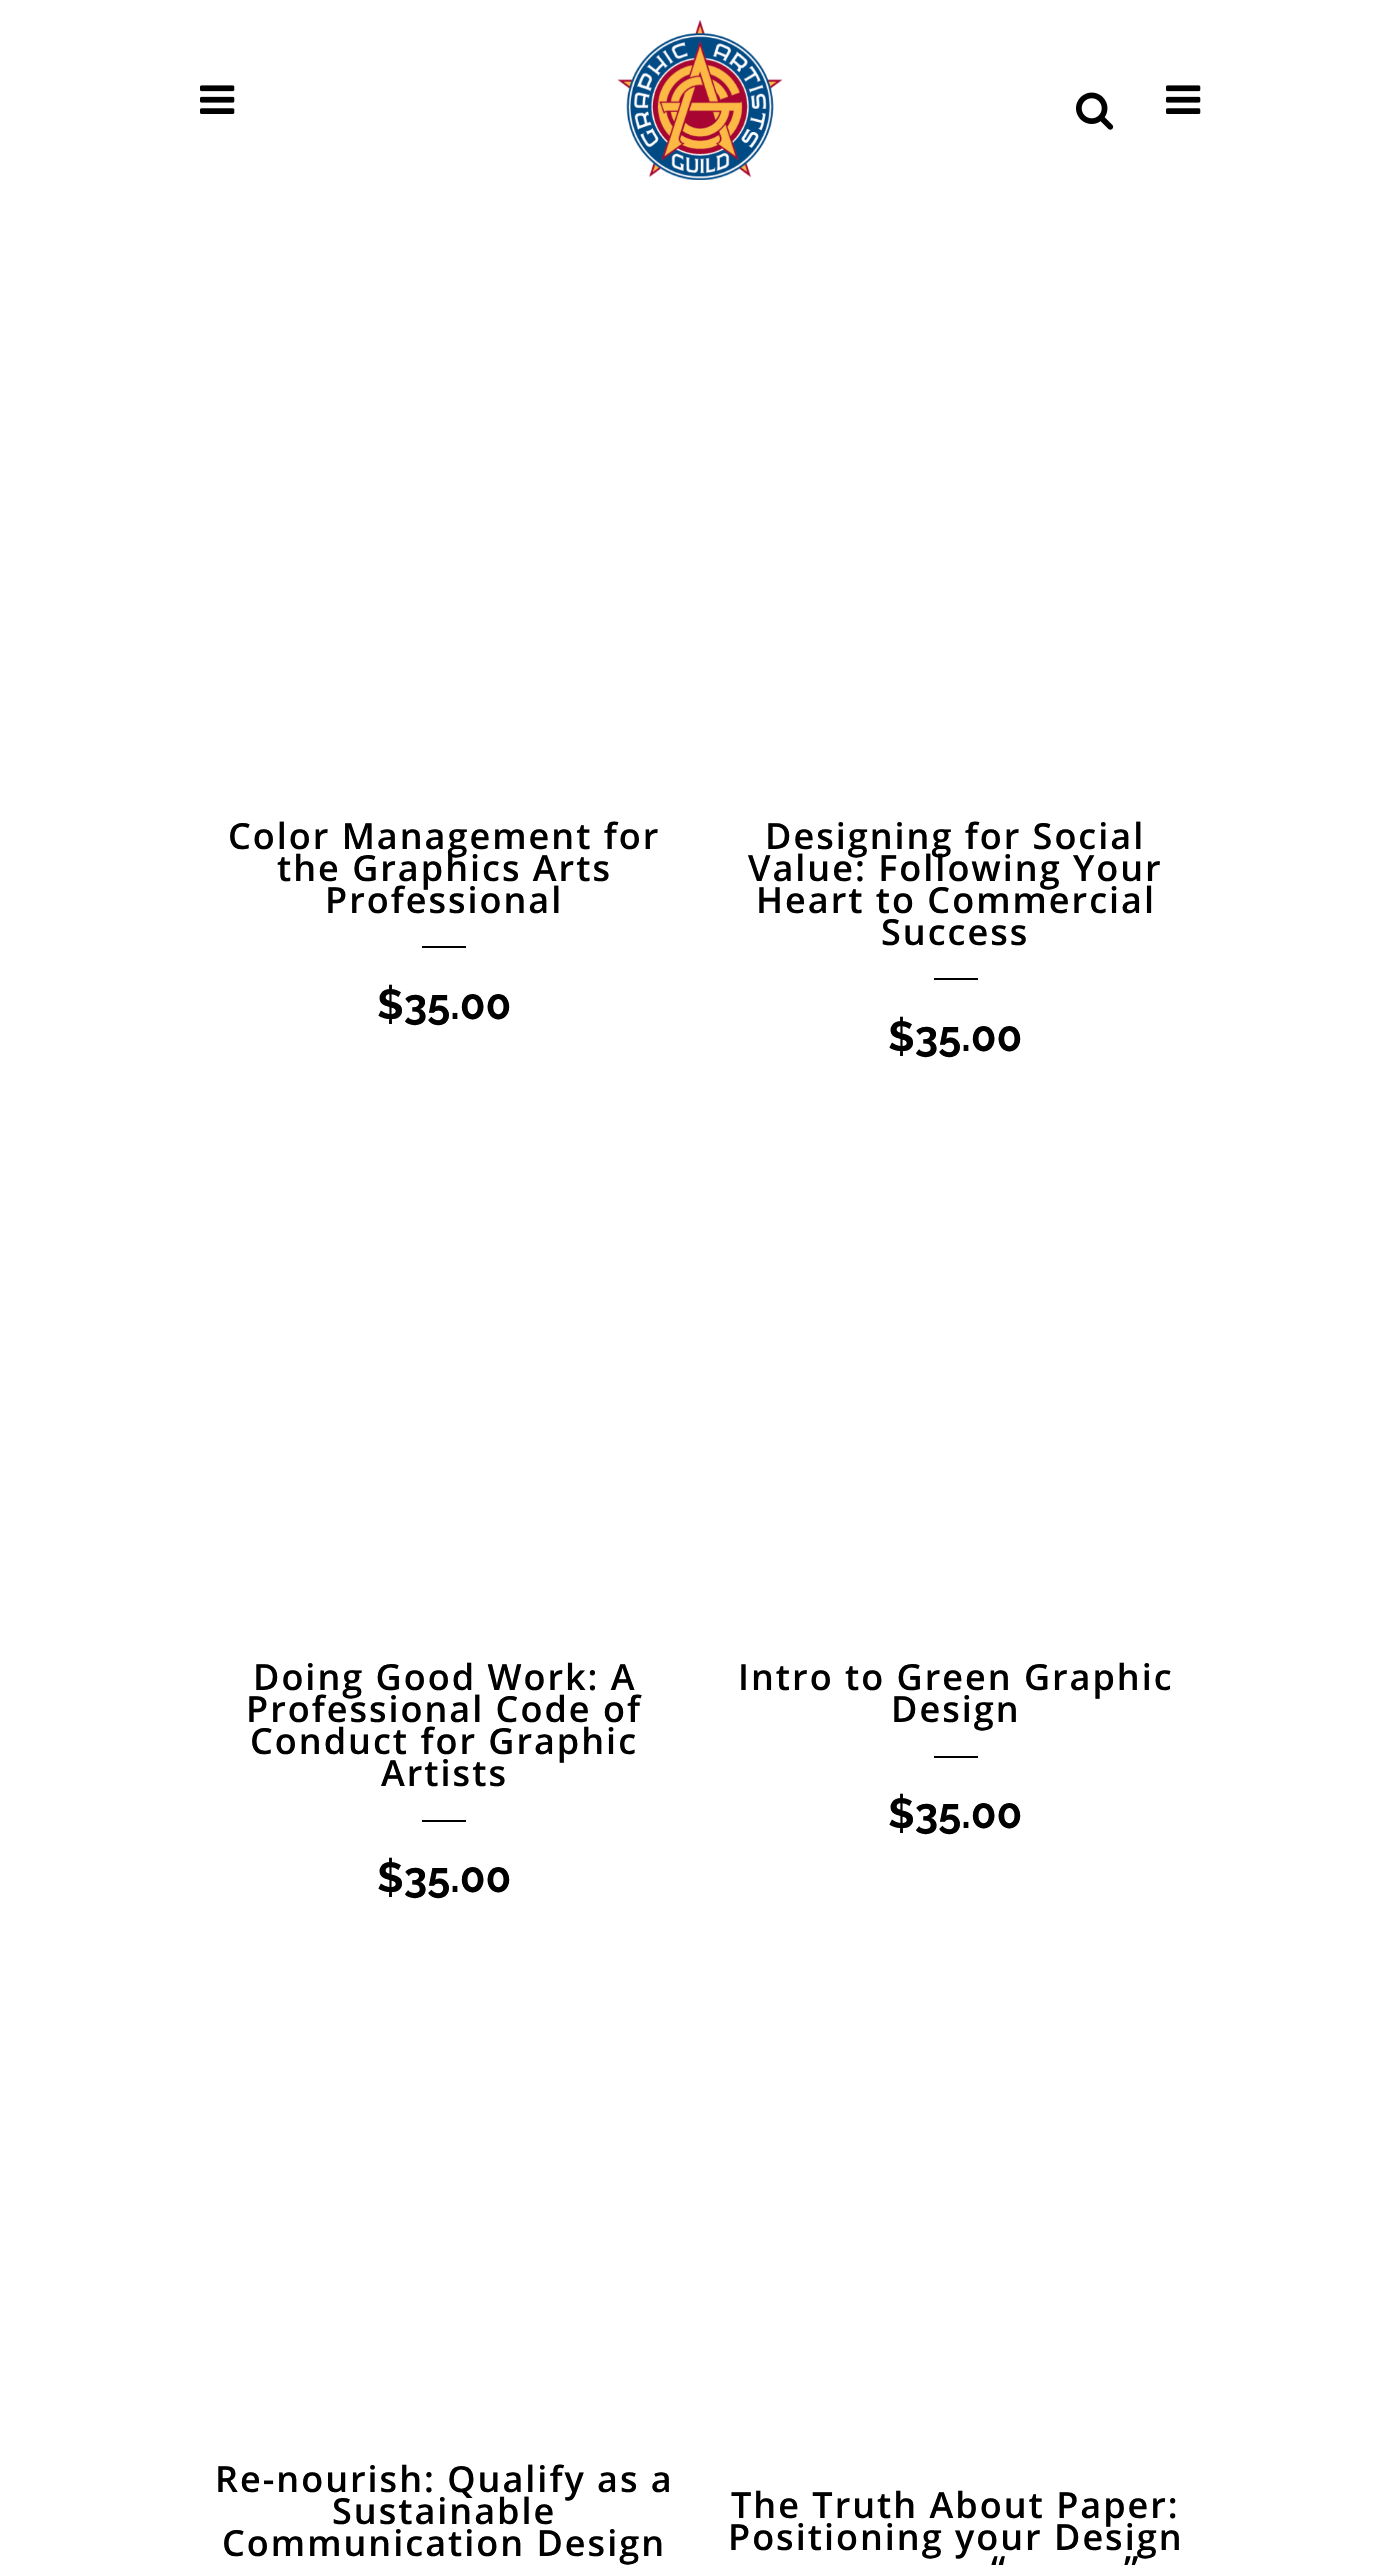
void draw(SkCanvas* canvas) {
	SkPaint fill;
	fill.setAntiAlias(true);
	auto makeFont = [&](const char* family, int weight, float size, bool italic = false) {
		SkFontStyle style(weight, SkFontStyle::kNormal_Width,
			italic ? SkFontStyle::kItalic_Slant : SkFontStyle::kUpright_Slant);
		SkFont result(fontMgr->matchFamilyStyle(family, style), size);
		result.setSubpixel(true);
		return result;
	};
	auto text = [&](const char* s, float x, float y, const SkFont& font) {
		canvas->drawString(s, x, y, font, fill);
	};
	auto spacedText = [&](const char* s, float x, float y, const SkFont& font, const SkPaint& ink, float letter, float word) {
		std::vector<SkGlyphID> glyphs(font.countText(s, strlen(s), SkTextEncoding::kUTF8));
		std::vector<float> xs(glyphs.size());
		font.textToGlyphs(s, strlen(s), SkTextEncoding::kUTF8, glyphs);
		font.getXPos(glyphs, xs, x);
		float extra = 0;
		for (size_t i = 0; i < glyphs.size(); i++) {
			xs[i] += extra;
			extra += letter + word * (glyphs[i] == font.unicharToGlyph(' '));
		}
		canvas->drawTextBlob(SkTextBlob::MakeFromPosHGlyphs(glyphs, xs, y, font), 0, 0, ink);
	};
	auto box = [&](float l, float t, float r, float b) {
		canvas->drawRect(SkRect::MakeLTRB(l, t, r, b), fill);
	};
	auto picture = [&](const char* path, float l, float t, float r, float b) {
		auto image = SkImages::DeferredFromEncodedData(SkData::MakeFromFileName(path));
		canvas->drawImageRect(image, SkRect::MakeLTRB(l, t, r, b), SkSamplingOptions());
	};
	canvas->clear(0xFFFFFFFF);
	picture("image0.png", 200, 85, 235, 114);
	picture("image1.png", 617, 20, 782, 180);
	picture("image2.png", 1076, 92, 1114, 130);
	picture("image0.png", 1166, 85, 1201, 114);
	fill.setColor(0xFF000000);
	box(422, 946, 466, 948);
	box(934, 978, 978, 980);
	box(422, 1820, 466, 1822);
	box(934, 1756, 978, 1758);
	auto font1 = makeFont("Open Sans", 600, 36);
	spacedText("Color Management for", 228, 849, font1, fill, 2, 0);
	spacedText("the Graphics Arts", 277, 881, font1, fill, 2, 0);
	spacedText("Professional", 325, 913, font1, fill, 2, 0);
	auto font2 = makeFont("Raleway", 700, 42);
	text("$35.00", 377, 1019, font2);
	spacedText("Designing for Social", 765, 849, font1, fill, 2, 0);
	spacedText("Value: Following Your", 748, 881, font1, fill, 2, 0);
	spacedText("Heart to Commercial", 756, 913, font1, fill, 2, 0);
	spacedText("Success", 881, 945, font1, fill, 2, 0);
	text("$35.00", 888, 1051, font2);
	spacedText("Doing Good Work: A", 253, 1690, font1, fill, 2, 0);
	spacedText("Professional Code of", 246, 1722, font1, fill, 2, 0);
	spacedText("Conduct for Graphic", 250, 1754, font1, fill, 2, 0);
	spacedText("Artists", 381, 1786, font1, fill, 2, 0);
	text("$35.00", 377, 1892, font2);
	spacedText("Intro to Green Graphic", 738, 1690, font1, fill, 2, 0);
	spacedText("Design", 891, 1722, font1, fill, 2, 0);
	text("$35.00", 888, 1828, font2);
	spacedText("Re-nourish: Qualify as a", 215, 2492, font1, fill, 2, 0);
	spacedText("Sustainable", 332, 2524, font1, fill, 2, 0);
	spacedText("Communication Design", 222, 2556, font1, fill, 2, 0);
	spacedText("The Truth About Paper:", 731, 2518, font1, fill, 2, 0);
	spacedText("Positioning your Design", 728, 2550, font1, fill, 2, 0);
	spacedText("“", 991, 2582, font1, fill, 2, 0);
	spacedText("”", 1124, 2582, font1, fill, 2, 0);
}
